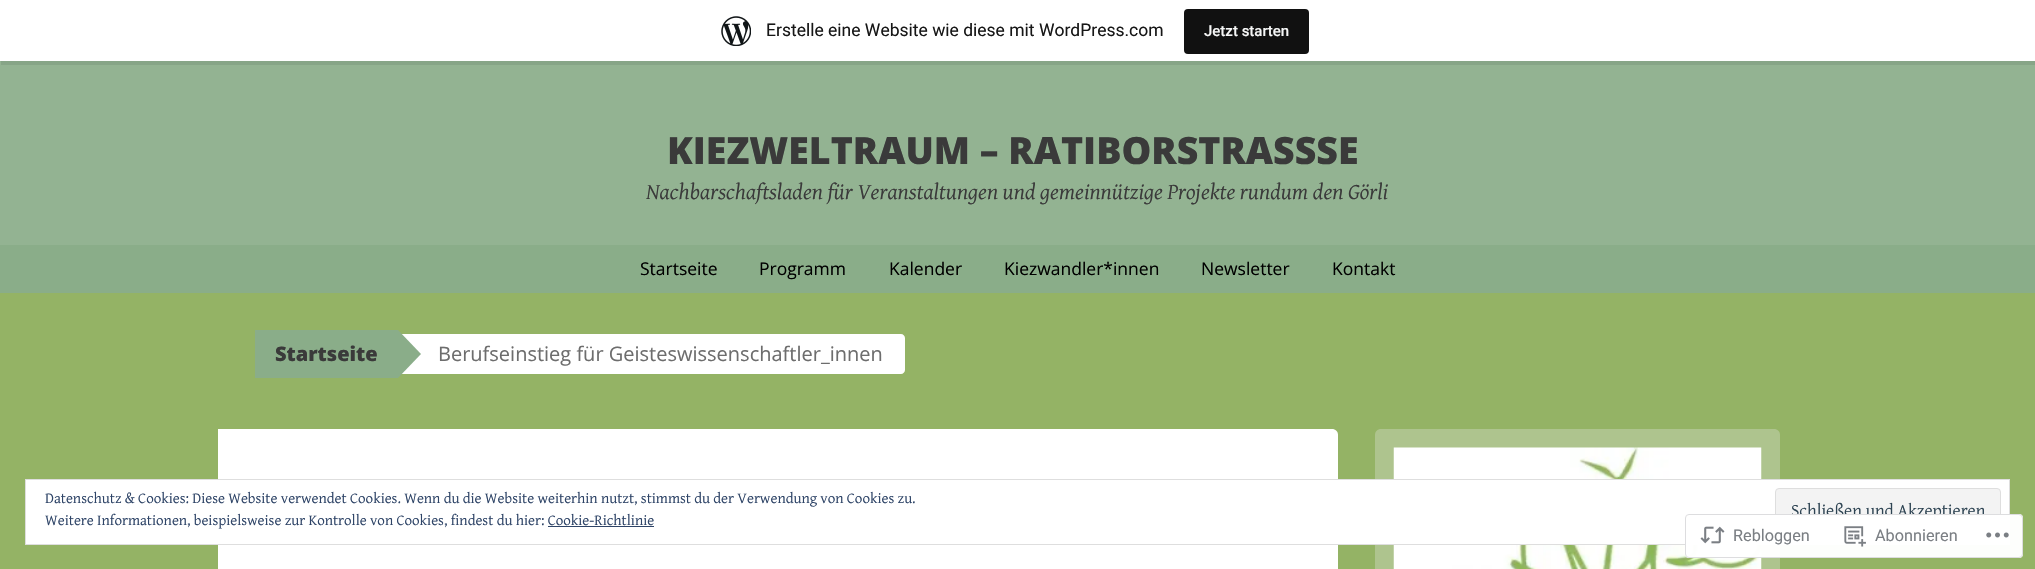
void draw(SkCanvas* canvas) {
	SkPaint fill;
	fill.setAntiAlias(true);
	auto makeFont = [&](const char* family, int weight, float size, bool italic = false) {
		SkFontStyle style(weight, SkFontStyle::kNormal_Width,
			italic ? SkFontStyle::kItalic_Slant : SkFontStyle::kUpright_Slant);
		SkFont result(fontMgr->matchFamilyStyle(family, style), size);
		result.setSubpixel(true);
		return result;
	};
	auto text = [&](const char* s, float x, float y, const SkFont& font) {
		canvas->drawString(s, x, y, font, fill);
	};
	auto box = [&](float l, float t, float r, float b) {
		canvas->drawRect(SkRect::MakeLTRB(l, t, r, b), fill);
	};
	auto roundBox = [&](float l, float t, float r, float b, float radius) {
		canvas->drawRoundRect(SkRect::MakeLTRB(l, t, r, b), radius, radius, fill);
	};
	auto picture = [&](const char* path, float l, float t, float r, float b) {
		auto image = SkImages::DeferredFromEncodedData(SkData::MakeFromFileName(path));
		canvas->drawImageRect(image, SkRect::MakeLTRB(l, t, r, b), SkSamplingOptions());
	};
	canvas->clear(0xFF94B365);
	fill.setColor(0xFF93B392);
	box(0, 61, 2035, 245);
	fill.setColor(0x14000000);
	canvas->drawPath(SkPathBuilder().moveTo(1, 61).lineTo(1, 65).lineTo(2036, 65).lineTo(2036, 4).lineTo(2035, 4).lineTo(2035, 61).close().detach(), fill);
	fill.setColor(0xFFFFFFFF);
	box(0, 0, 2035, 61);
	picture("image0.png", 721, 16, 751, 46);
	fill.setColor(0xFF111111);
	roundBox(1184, 9, 1309, 54, 4);
	fill.setColor(0xFF8AAD89);
	box(0, 245, 2035, 293);
	box(255, 330, 398, 378);
	fill.setColor(0xFFFFFFFF);
	box(401, 334, 438, 374);
	fill.setColor(0xFF8AAD89);
	canvas->drawPath(SkPathBuilder().moveTo(398, 378).lineTo(398, 330).lineTo(421, 354).close().detach(), fill);
	fill.setColor(0xFFFFFFFF);
	canvas->drawPath(SkPathBuilder().moveTo(438, 334).lineTo(901, 334).cubicTo(903, 334, 905, 336, 905, 338).lineTo(905, 370).cubicTo(905, 372, 903, 374, 901, 374).lineTo(438, 374).close().detach(), fill);
	canvas->drawPath(SkPathBuilder().moveTo(218, 429).lineTo(1332, 429).cubicTo(1335.5f, 429, 1338, 431.5f, 1338, 435).lineTo(1338, 569).cubicTo(1338, 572.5f, 1335.5f, 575, 1332, 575).lineTo(218, 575).close().detach(), fill);
	fill.setColor(0xFFAEC48E);
	canvas->drawPath(SkPathBuilder().moveTo(1381, 429).lineTo(1774, 429).cubicTo(1777.5f, 429, 1780, 431.5f, 1780, 435).lineTo(1780, 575).lineTo(1375, 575).lineTo(1375, 435).cubicTo(1375, 431.5f, 1377.5f, 429, 1381, 429).close().detach(), fill);
	picture("image1.png", 1393, 447, 1762, 569);
	fill.setColor(0xFFFFFFFF);
	canvas->drawRect(SkRect::MakeLTRB(25.5f, 479.5f, 2009.5f, 544.5f), fill);
	fill.setStyle(SkPaint::kStroke_Style);
	fill.setStrokeWidth(1);
	fill.setColor(0xFFDEDEDE);
	canvas->drawRect(SkRect::MakeLTRB(25.5f, 479.5f, 2009.5f, 544.5f), fill);
	fill.setStyle(SkPaint::kFill_Style);
	fill.setColor(0xFFF3F3F3);
	canvas->drawRoundRect(SkRect::MakeLTRB(1775.5f, 488.5f, 2000.5f, 535.5f), 3.5f, 3.5f, fill);
	fill.setStyle(SkPaint::kStroke_Style);
	fill.setColor(0xFFDEDEDE);
	canvas->drawRoundRect(SkRect::MakeLTRB(1775.5f, 488.5f, 2000.5f, 535.5f), 3.5f, 3.5f, fill);
	fill.setStyle(SkPaint::kFill_Style);
	fill.setColor(0xFF2E4467);
	box(548, 526, 654, 527);
	auto font1 = makeFont("Roboto", 400, 17.5f);
	fill.setColor(0xFF171717);
	text("Erstelle eine Website wie diese mit WordPress.com", 766, 36, font1);
	auto font2 = makeFont("Roboto", 500, 15);
	fill.setColor(0xFFF6F7F7);
	text("Jetzt starten", 1204, 36, font2);
	auto font3 = makeFont("Open Sans", 800, 37.5f);
	fill.setColor(0xFF3A3A3A);
	text("KIEZWELTRAUM – RATIBORSTRASSSE", 667, 164, font3);
	auto font4 = makeFont("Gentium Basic", 400, 22.5f, true);
	text("Nachbarschaftsladen für Veranstaltungen und gemeinnützige Projekte rundum den Görli", 646, 199, font4);
	auto font5 = makeFont("Open Sans", 400, 17.5f);
	fill.setColor(0xFF000000);
	text("Startseite", 640, 275, font5);
	text("Programm", 759, 275, font5);
	text("Kalender", 889, 275, font5);
	text("Kiezwandler*innen", 1004, 275, font5);
	text("Newsletter", 1201, 275, font5);
	text("Kontakt", 1332, 275, font5);
	auto font6 = makeFont("Open Sans", 800, 20);
	fill.setColor(0xFF3A3A3A);
	text("Startseite", 275, 361, font6);
	auto font7 = makeFont("Open Sans", 400, 20);
	fill.setColor(0xFF6D6D6D);
	text("Berufseinstieg für Geisteswissenschaftler_innen", 438, 361, font7);
	auto font8 = makeFont("Gentium Basic", 400, 15);
	fill.setColor(0xFF2E4467);
	text("Datenschutz & Cookies: Diese Website verwendet Cookies. Wenn du die Website weiterhin nutzt, stimmst du der Verwendung von Cookies zu.", 45, 503, font8);
	text("Weitere Informationen, beispielsweise zur Kontrolle von Cookies, findest du hier: Cookie-Richtlinie", 45, 525, font8);
	auto font9 = makeFont("Gentium Basic", 400, 17.5f);
	fill.setColor(0xFF2E4453);
	text("Schließen und Akzeptieren", 1791, 516, font9);
	fill.setColor(0xFAFFFFFF);
	roundBox(1685, 514, 2023, 558, 4);
	fill.setStyle(SkPaint::kStroke_Style);
	fill.setColor(0xFADCDCDE);
	canvas->drawRoundRect(SkRect::MakeLTRB(1685.5f, 514.5f, 2022.5f, 557.5f), 3.5f, 3.5f, fill);
	picture("image2.png", 1700, 526, 1725, 544);
	auto font10 = makeFont("Roboto", 400, 16.25f);
	fill.setStyle(SkPaint::kFill_Style);
	fill.setColor(0xFF7B7F84);
	text("Rebloggen", 1733, 541, font10);
	picture("image3.png", 1844, 526, 1866, 547);
	text("Abonnieren", 1875, 541, font10);
	picture("image4.png", 1986, 532, 2009, 538);
}
